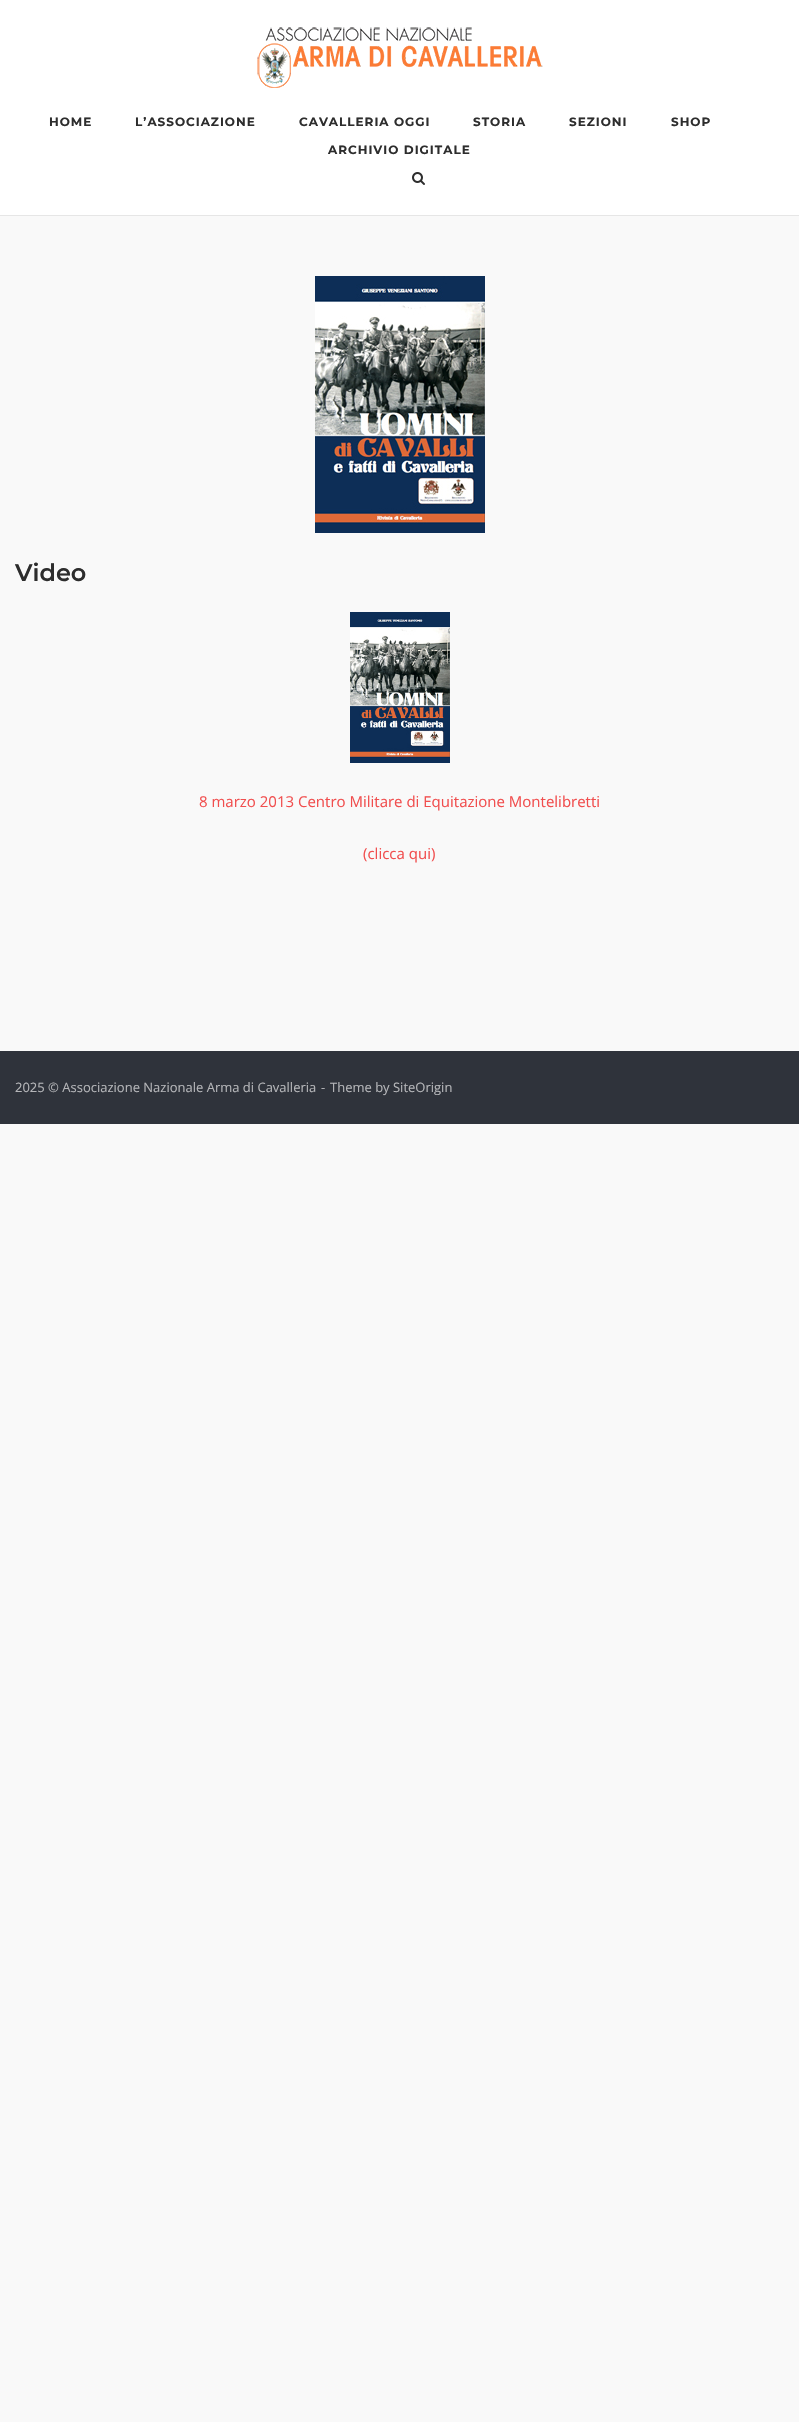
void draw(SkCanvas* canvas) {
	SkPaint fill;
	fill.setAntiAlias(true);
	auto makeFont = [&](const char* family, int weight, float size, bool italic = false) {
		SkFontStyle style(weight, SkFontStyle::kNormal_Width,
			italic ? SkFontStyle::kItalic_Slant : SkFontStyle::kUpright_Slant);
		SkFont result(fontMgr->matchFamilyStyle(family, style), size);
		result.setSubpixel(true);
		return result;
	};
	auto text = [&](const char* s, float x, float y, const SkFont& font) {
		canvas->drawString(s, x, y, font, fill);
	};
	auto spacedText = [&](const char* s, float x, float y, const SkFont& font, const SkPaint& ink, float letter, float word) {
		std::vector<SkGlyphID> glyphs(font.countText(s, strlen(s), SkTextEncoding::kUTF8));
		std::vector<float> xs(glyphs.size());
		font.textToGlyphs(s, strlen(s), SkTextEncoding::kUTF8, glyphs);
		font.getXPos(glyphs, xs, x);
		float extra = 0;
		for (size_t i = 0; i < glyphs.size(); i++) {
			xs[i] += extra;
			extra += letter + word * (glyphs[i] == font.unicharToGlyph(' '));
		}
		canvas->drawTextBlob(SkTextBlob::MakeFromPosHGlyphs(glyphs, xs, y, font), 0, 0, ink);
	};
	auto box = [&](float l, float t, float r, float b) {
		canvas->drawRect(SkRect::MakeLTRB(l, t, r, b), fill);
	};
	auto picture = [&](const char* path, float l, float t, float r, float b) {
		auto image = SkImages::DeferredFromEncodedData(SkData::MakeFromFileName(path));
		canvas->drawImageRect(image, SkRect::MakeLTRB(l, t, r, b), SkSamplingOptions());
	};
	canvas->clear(0xFFF9F9F9);
	fill.setColor(0xFFFFFFFF);
	box(0, 0, 799, 215);
	fill.setColor(0xFFE6E6E6);
	box(0, 215, 799, 216);
	picture("image0.png", 257, 27, 543, 88);
	picture("image1.png", 412, 172, 425, 185);
	picture("image2.png", 315, 276, 485, 533);
	picture("image3.png", 350, 612, 450, 763);
	fill.setColor(0xFF2F333B);
	box(0, 1051, 799, 1124);
	auto font1 = makeFont("Montserrat", 700, 12);
	fill.setColor(0xFF2D2D2D);
	spacedText("HOME", 49, 126, font1, fill, 1, 0);
	spacedText("L’ASSOCIAZIONE", 135, 126, font1, fill, 1, 0);
	spacedText("CAVALLERIA OGGI", 299, 126, font1, fill, 1, 0);
	spacedText("STORIA", 473, 126, font1, fill, 1, 0);
	spacedText("SEZIONI", 569, 126, font1, fill, 1, 0);
	spacedText("SHOP", 671, 126, font1, fill, 1, 0);
	spacedText("ARCHIVIO DIGITALE", 328, 154, font1, fill, 1, 0);
	auto font2 = makeFont("Montserrat", 600, 24);
	text("Video", 15, 581, font2);
	auto font3 = makeFont("Open Sans", 400, 15);
	fill.setColor(0xFFF14E4E);
	text("8 marzo 2013 Centro Militare di Equitazione Montelibretti", 199, 807, font3);
	text("(clicca qui)", 363, 859, font3);
	auto font4 = makeFont("Open Sans", 400, 13);
	fill.setColor(0xFFB4B5B8);
	text("2025 © Associazione Nazionale Arma di Cavalleria", 15, 1092, font4);
	text("-", 321, 1092, font4);
	text("Theme by SiteOrigin", 330, 1092, font4);
}
